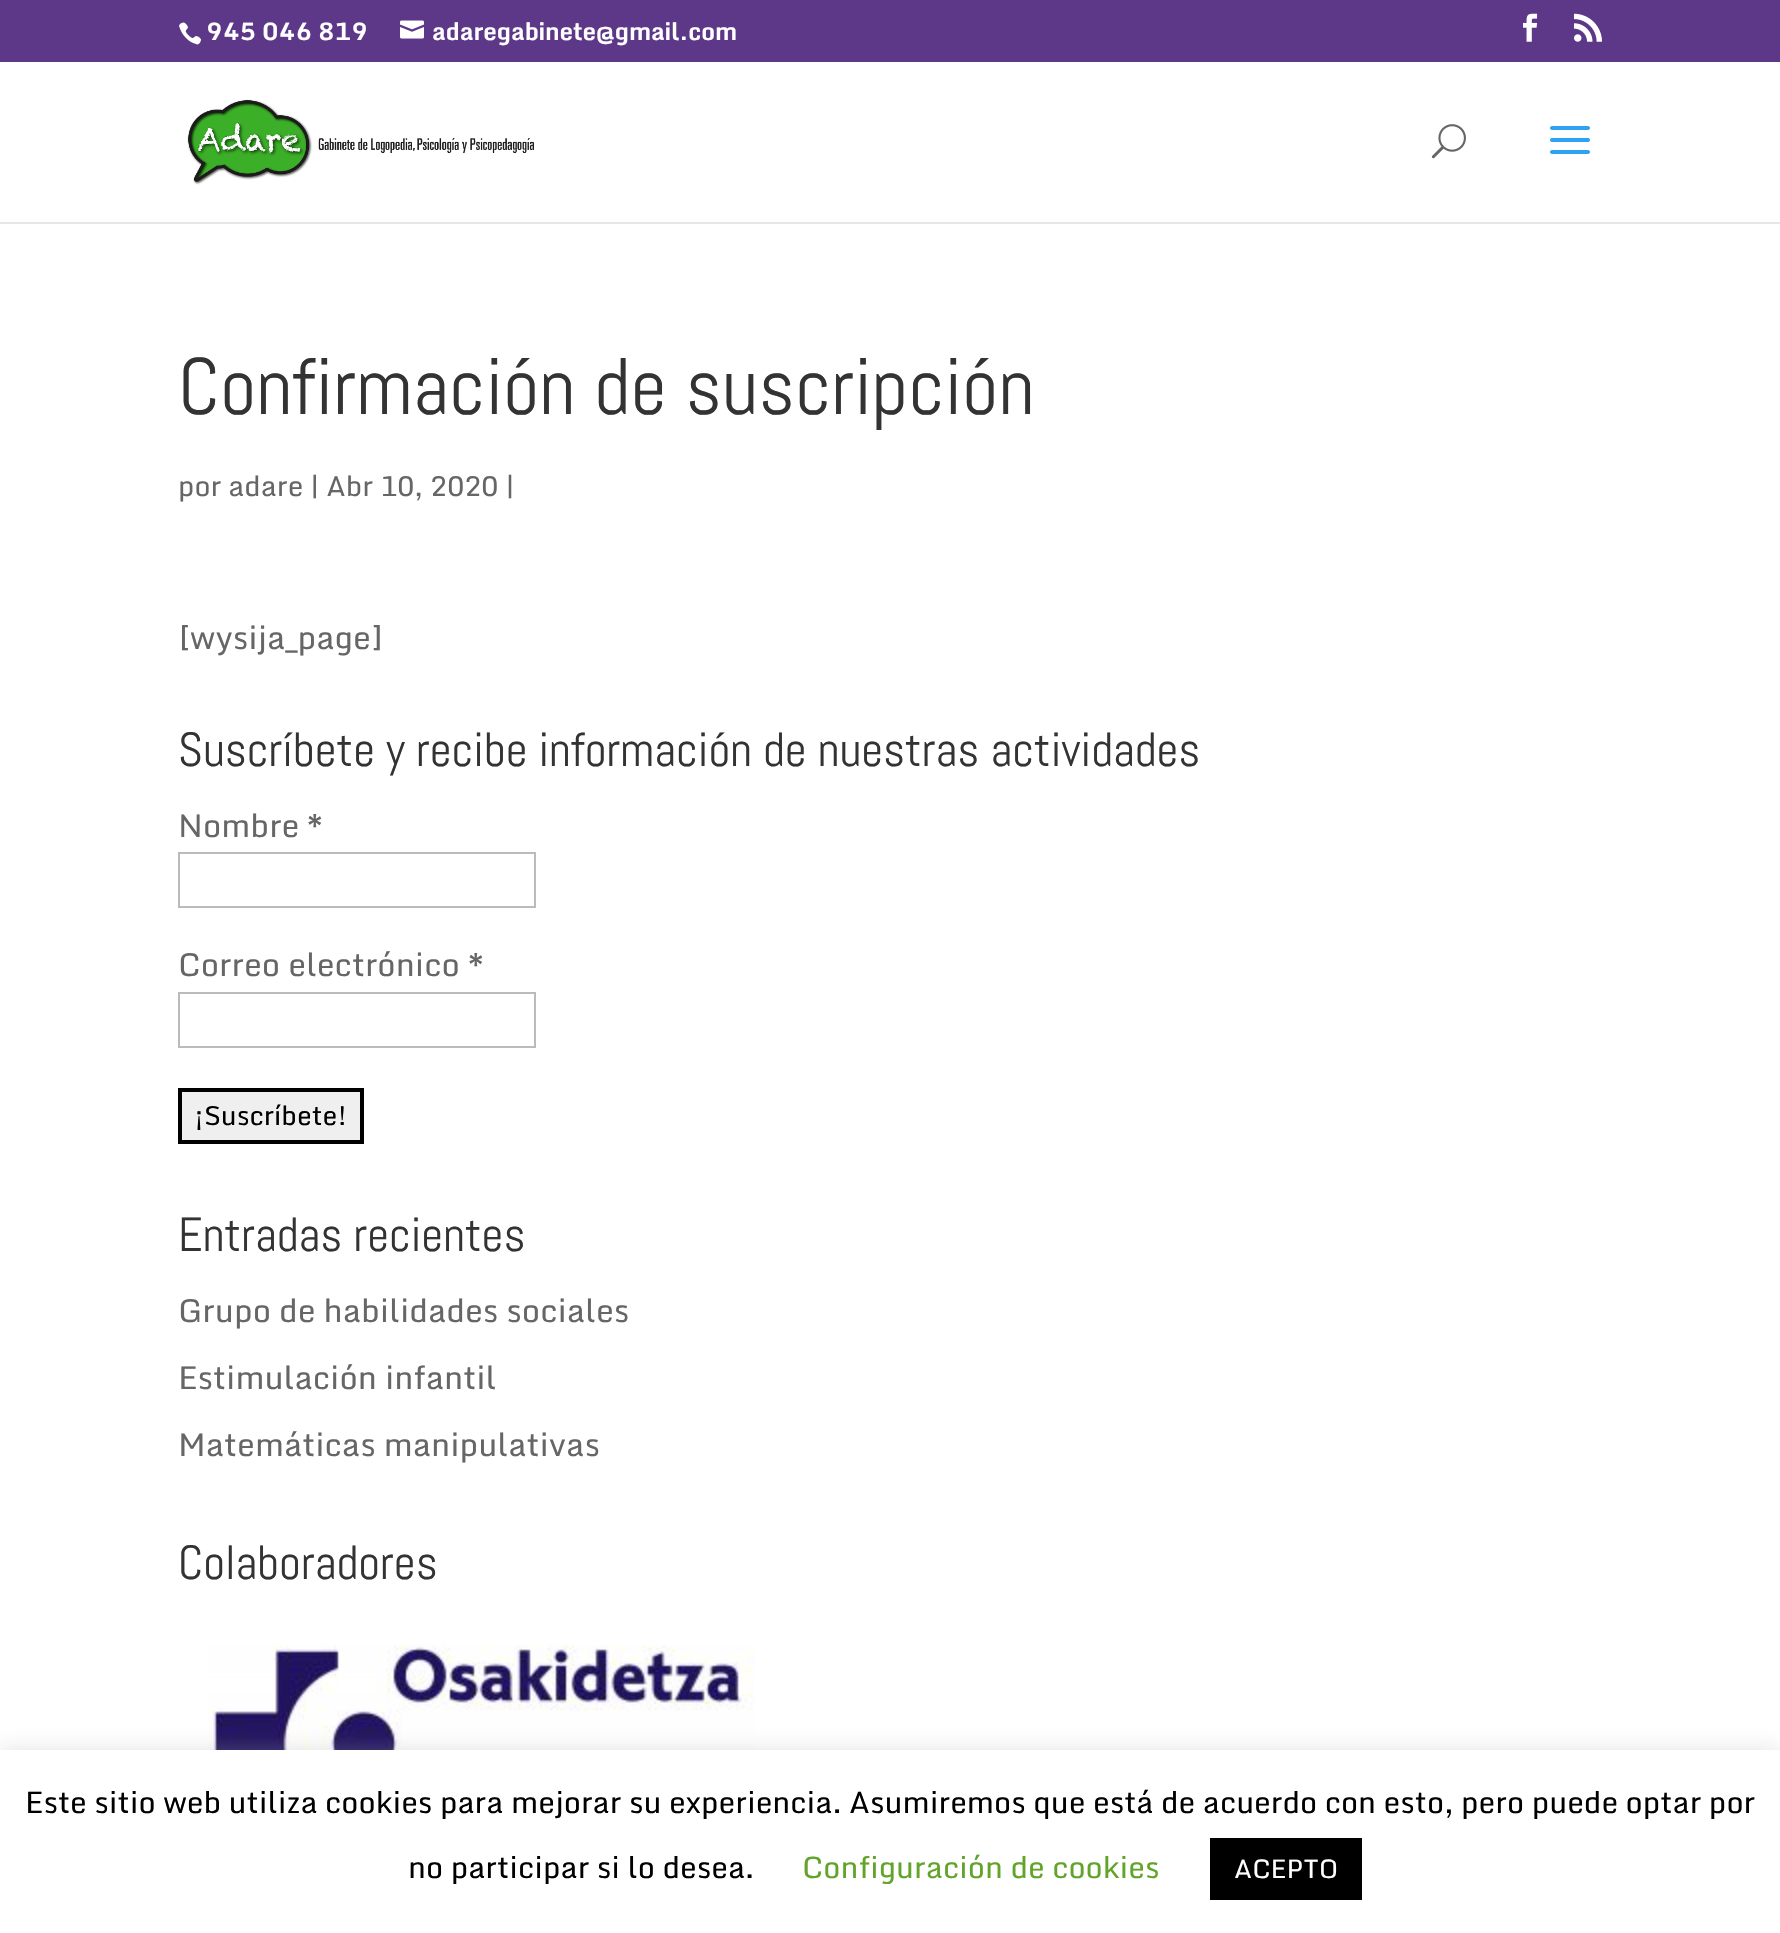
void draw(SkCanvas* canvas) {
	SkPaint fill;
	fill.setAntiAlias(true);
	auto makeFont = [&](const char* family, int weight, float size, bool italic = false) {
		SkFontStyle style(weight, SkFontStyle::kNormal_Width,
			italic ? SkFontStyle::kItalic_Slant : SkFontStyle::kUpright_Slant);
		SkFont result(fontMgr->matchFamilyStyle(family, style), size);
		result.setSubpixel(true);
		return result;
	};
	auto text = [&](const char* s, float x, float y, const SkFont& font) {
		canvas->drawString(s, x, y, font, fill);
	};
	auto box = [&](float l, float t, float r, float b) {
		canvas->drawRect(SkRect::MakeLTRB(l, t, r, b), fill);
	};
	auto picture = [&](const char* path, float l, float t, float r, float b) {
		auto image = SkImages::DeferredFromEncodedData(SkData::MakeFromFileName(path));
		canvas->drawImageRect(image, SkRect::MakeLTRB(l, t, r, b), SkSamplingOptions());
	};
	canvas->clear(0xFFFFFFFF);
	fill.setColor(0xFF5D3788);
	box(0, 0, 1780, 62);
	picture("image0.png", 179, 22, 201, 45);
	picture("image1.png", 400, 20, 424, 39);
	picture("image2.png", 1523, 13, 1538, 42);
	picture("image3.png", 1574, 13, 1602, 42);
	fill.setColor(0xFFE6E6E6);
	box(0, 222, 1780, 224);
	picture("image4.png", 187, 99, 534, 185);
	picture("image5.png", 1431, 124, 1466, 159);
	picture("image6.png", 1550, 126, 1590, 154);
	fill.setStyle(SkPaint::kStroke_Style);
	fill.setStrokeWidth(2);
	fill.setColor(0xFFBBBBBB);
	canvas->drawRect(SkRect::MakeLTRB(179, 853, 535, 907), fill);
	canvas->drawRect(SkRect::MakeLTRB(179, 993, 535, 1047), fill);
	fill.setStyle(SkPaint::kFill_Style);
	fill.setColor(0xFFEFEFEF);
	canvas->drawRect(SkRect::MakeLTRB(180, 1090, 362, 1142), fill);
	fill.setStyle(SkPaint::kStroke_Style);
	fill.setStrokeWidth(4);
	fill.setColor(0xFF000000);
	canvas->drawRect(SkRect::MakeLTRB(180, 1090, 362, 1142), fill);
	picture("image7.png", 208, 1644, 755, 1750);
	fill.setStyle(SkPaint::kFill_Style);
	fill.setColor(0x4DACABAB);
	fill.setMaskFilter(SkMaskFilter::MakeBlur(kNormal_SkBlurStyle, 10));
	canvas->drawRect(SkRect::MakeLTRB(0, 1748, 1780, 1932), fill);
	fill.setMaskFilter(nullptr);
	fill.setColor(0xFFFFFFFF);
	box(0, 1750, 1780, 1933);
	fill.setColor(0xFF000000);
	box(1210, 1838, 1362, 1900);
	auto font1 = makeFont("Monda", 700, 24);
	fill.setColor(0xFFFFFFFF);
	text("945 046 819", 206, 40, font1);
	text("adaregabinete@gmail.com", 432, 40, font1);
	auto font2 = makeFont("Abel", 400, 80);
	fill.setColor(0xFF333333);
	text("Confirmación de suscripción", 178, 414, font2);
	auto font3 = makeFont("Monda", 400, 28);
	fill.setColor(0xFF666666);
	text("por adare | Abr 10, 2020 |", 178, 496, font3);
	auto font4 = makeFont("Monda", 400, 32);
	text("[wysija_page]", 178, 649, font4);
	auto font5 = makeFont("Abel", 400, 48);
	fill.setColor(0xFF333333);
	text("Suscríbete y recibe información de nuestras actividades", 178, 766, font5);
	fill.setColor(0xFF666666);
	text("Nombre", 178, 837, font4);
	auto font6 = makeFont("Monda", 700, 32);
	text("*", 307, 837, font6);
	text("Correo electrónico", 178, 976, font4);
	text("*", 468, 976, font6);
	auto font7 = makeFont("Monda", 400, 26.5f);
	fill.setColor(0xFF000000);
	text("¡Suscríbete!", 194, 1125, font7);
	fill.setColor(0xFF333333);
	text("Entradas recientes", 178, 1251, font5);
	fill.setColor(0xFF666666);
	text("Grupo de habilidades sociales", 178, 1322, font4);
	text("Estimulación infantil", 178, 1389, font4);
	text("Matemáticas manipulativas", 178, 1456, font4);
	fill.setColor(0xFF333333);
	text("Colaboradores", 178, 1579, font5);
	auto font8 = makeFont("Monda", 400, 30);
	fill.setColor(0xFF000000);
	text("Este sitio web utiliza cookies para mejorar su experiencia. Asumiremos que está de acuerdo con esto, pero puede optar por", 25, 1813, font8);
	text("no participar si lo desea.", 408, 1878, font8);
	fill.setColor(0xFF62A329);
	text("Configuración de cookies", 802, 1878, font8);
	auto font9 = makeFont("Monda", 400, 26);
	fill.setColor(0xFFFFFFFF);
	text("ACEPTO", 1234, 1878, font9);
}
